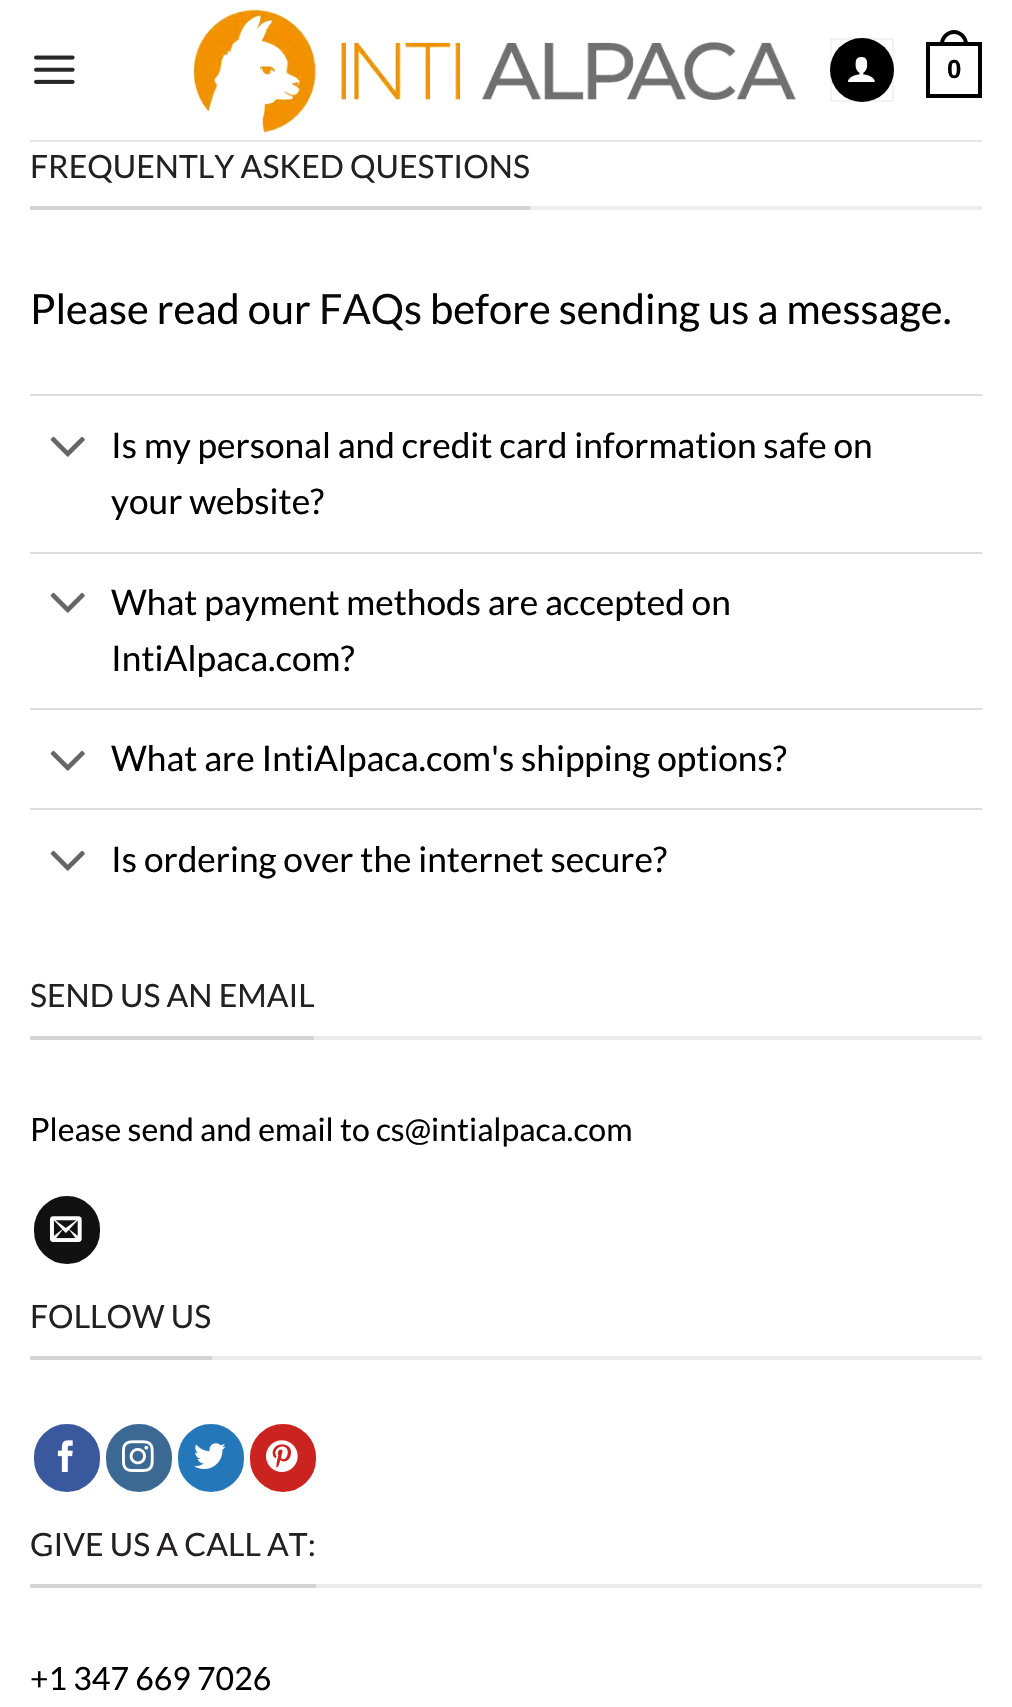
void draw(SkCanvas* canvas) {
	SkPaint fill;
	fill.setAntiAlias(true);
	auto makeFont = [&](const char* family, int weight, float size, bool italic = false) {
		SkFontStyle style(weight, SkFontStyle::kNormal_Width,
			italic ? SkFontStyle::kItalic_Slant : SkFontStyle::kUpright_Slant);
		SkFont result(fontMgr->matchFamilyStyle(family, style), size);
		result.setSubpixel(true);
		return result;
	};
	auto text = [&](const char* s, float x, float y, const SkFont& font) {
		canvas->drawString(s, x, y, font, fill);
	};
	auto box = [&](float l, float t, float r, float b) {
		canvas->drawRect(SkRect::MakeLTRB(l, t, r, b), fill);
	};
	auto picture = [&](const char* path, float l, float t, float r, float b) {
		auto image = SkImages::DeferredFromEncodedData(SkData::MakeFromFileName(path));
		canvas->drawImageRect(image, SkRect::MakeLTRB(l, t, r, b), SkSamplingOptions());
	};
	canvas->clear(0xFFFFFFFF);
	picture("image0.png", 34, 55, 75, 84);
	picture("image1.png", 193, 9, 796, 133);
	fill.setColor(0xFF000000);
	canvas->drawCircle(862, 70, 32, fill);
	fill.setStyle(SkPaint::kStroke_Style);
	fill.setStrokeWidth(2);
	fill.setColor(0x0D000000);
	canvas->drawRect(SkRect::MakeLTRB(831, 39, 893, 101), fill);
	picture("image2.png", 848, 57, 875, 82);
	fill.setStrokeWidth(4);
	fill.setColor(0xFF000000);
	canvas->drawRect(SkRect::MakeLTRB(928, 44, 980, 96), fill);
	fill.setStyle(SkPaint::kFill_Style);
	canvas->drawPath(SkPathBuilder(SkPathFillType::kEvenOdd).moveTo(954, 30).cubicTo(961.5f, 30, 968, 36.5f, 968, 44).lineTo(968, 46).lineTo(940, 46).lineTo(940, 44).cubicTo(940, 36.5f, 946.5f, 30, 954, 30).close().moveTo(954, 34).cubicTo(959.5f, 34, 964, 38.5f, 964, 44).lineTo(964, 46).lineTo(944, 46).lineTo(944, 44).cubicTo(944, 38.5f, 948.5f, 34, 954, 34).close().detach(), fill);
	fill.setColor(0xFFE6E6E6);
	box(30, 140, 982, 142);
	fill.setColor(0xFFECECEC);
	box(530, 206, 982, 210);
	fill.setColor(0xFFD4D4D4);
	box(30, 206, 530, 210);
	fill.setColor(0xFFDDDDDD);
	box(30, 394, 982, 396);
	picture("image3.png", 50, 436, 85, 457);
	box(30, 552, 982, 554);
	picture("image3.png", 50, 592, 85, 613);
	box(30, 708, 982, 710);
	picture("image3.png", 50, 750, 85, 771);
	box(30, 808, 982, 810);
	picture("image3.png", 50, 850, 85, 871);
	fill.setColor(0xFFECECEC);
	box(314, 1036, 982, 1040);
	fill.setColor(0xFFD4D4D4);
	box(30, 1036, 314, 1040);
	fill.setColor(0xFF111111);
	canvas->drawRoundRect(SkRect::MakeLTRB(35, 1197, 99, 1263), 32, 32, fill);
	fill.setStyle(SkPaint::kStroke_Style);
	fill.setStrokeWidth(2);
	canvas->drawRoundRect(SkRect::MakeLTRB(35, 1197, 99, 1263), 32, 32, fill);
	picture("image4.png", 50, 1216, 82, 1242);
	fill.setStyle(SkPaint::kFill_Style);
	fill.setColor(0xFFECECEC);
	box(212, 1356, 982, 1360);
	fill.setColor(0xFFD4D4D4);
	box(30, 1356, 212, 1360);
	fill.setColor(0xFF3A589D);
	canvas->drawRoundRect(SkRect::MakeLTRB(35, 1425, 99, 1491), 32, 32, fill);
	fill.setStyle(SkPaint::kStroke_Style);
	canvas->drawRoundRect(SkRect::MakeLTRB(35, 1425, 99, 1491), 32, 32, fill);
	picture("image5.png", 57, 1440, 73, 1472);
	fill.setStyle(SkPaint::kFill_Style);
	fill.setColor(0xFF3B6994);
	canvas->drawRoundRect(SkRect::MakeLTRB(107, 1425, 171, 1491), 32, 32, fill);
	fill.setStyle(SkPaint::kStroke_Style);
	canvas->drawRoundRect(SkRect::MakeLTRB(107, 1425, 171, 1491), 32, 32, fill);
	picture("image6.png", 122, 1440, 154, 1472);
	fill.setStyle(SkPaint::kFill_Style);
	fill.setColor(0xFF2478BA);
	canvas->drawRoundRect(SkRect::MakeLTRB(179, 1425, 243, 1491), 32, 32, fill);
	fill.setStyle(SkPaint::kStroke_Style);
	canvas->drawRoundRect(SkRect::MakeLTRB(179, 1425, 243, 1491), 32, 32, fill);
	picture("image7.png", 194, 1443, 226, 1469);
	fill.setStyle(SkPaint::kFill_Style);
	fill.setColor(0xFFCB2320);
	canvas->drawRoundRect(SkRect::MakeLTRB(251, 1425, 315, 1491), 32, 32, fill);
	fill.setStyle(SkPaint::kStroke_Style);
	canvas->drawRoundRect(SkRect::MakeLTRB(251, 1425, 315, 1491), 32, 32, fill);
	picture("image8.png", 266, 1440, 298, 1472);
	fill.setStyle(SkPaint::kFill_Style);
	fill.setColor(0xFFECECEC);
	box(316, 1584, 982, 1588);
	fill.setColor(0xFFD4D4D4);
	box(30, 1584, 316, 1588);
	auto font1 = makeFont("Liberation Sans", 700, 26);
	fill.setColor(0xFF000000);
	text("0", 947, 78, font1);
	auto font2 = makeFont("Lato", 400, 32);
	fill.setColor(0xFF222020);
	text("FREQUENTLY ASKED QUESTIONS", 30, 178, font2);
	auto font3 = makeFont("Lato", 400, 41.6f);
	fill.setColor(0xFF000000);
	text("Please read our", 30, 324, font3);
	fill.setColor(0xFF0A0A0A);
	text("FAQs", 319, 324, font3);
	fill.setColor(0xFF000000);
	text("before sending us a message.", 430, 324, font3);
	auto font4 = makeFont("Lato", 400, 35.2f);
	text("Is my personal and credit card information safe on", 111, 458, font4);
	text("your website?", 111, 514, font4);
	text("What payment methods are accepted on", 111, 615, font4);
	text("IntiAlpaca.com?", 111, 671, font4);
	text("What are IntiAlpaca.com's shipping options?", 111, 771, font4);
	text("Is ordering over the internet secure?", 111, 872, font4);
	fill.setColor(0xFF222020);
	text("SEND US AN EMAIL", 30, 1007, font2);
	fill.setColor(0xFF000000);
	text("Please send and email to cs@intialpaca.com", 30, 1141, font2);
	fill.setColor(0xFF222020);
	text("FOLLOW US", 30, 1328, font2);
	text("GIVE US A CALL AT:", 30, 1556, font2);
	fill.setColor(0xFF000000);
	text("+1 347 669 7026", 30, 1690, font2);
}
